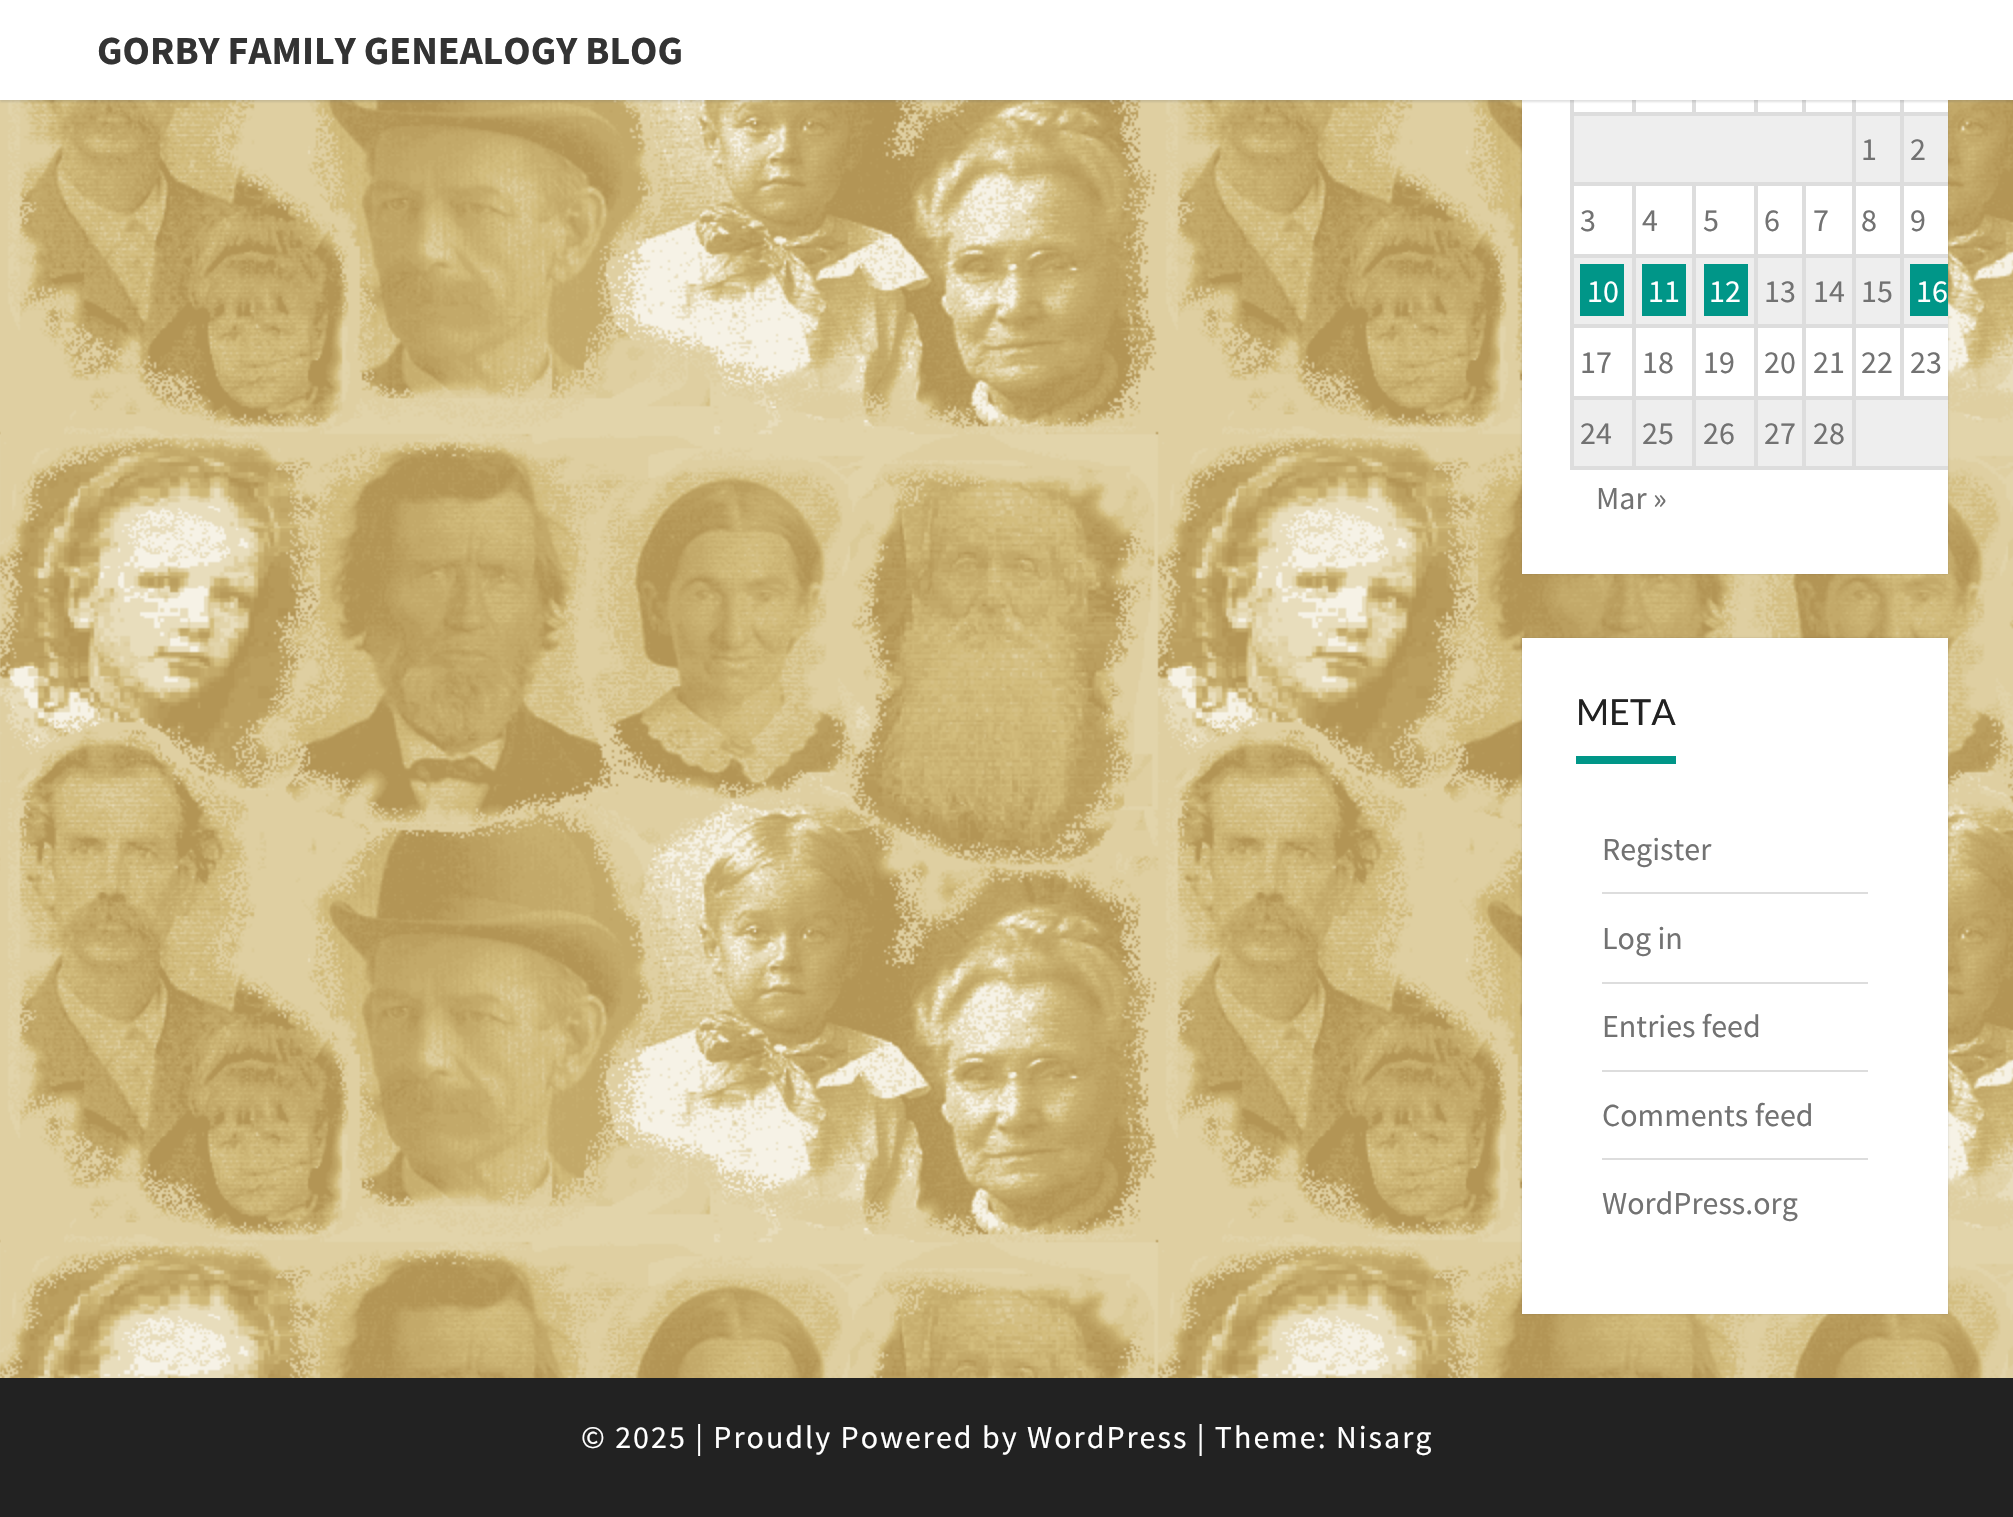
void draw(SkCanvas* canvas) {
	SkPaint fill;
	fill.setAntiAlias(true);
	auto makeFont = [&](const char* family, int weight, float size, bool italic = false) {
		SkFontStyle style(weight, SkFontStyle::kNormal_Width,
			italic ? SkFontStyle::kItalic_Slant : SkFontStyle::kUpright_Slant);
		SkFont result(fontMgr->matchFamilyStyle(family, style), size);
		result.setSubpixel(true);
		return result;
	};
	auto text = [&](const char* s, float x, float y, const SkFont& font) {
		canvas->drawString(s, x, y, font, fill);
	};
	auto spacedText = [&](const char* s, float x, float y, const SkFont& font, const SkPaint& ink, float letter, float word) {
		std::vector<SkGlyphID> glyphs(font.countText(s, strlen(s), SkTextEncoding::kUTF8));
		std::vector<float> xs(glyphs.size());
		font.textToGlyphs(s, strlen(s), SkTextEncoding::kUTF8, glyphs);
		font.getXPos(glyphs, xs, x);
		float extra = 0;
		for (size_t i = 0; i < glyphs.size(); i++) {
			xs[i] += extra;
			extra += letter + word * (glyphs[i] == font.unicharToGlyph(' '));
		}
		canvas->drawTextBlob(SkTextBlob::MakeFromPosHGlyphs(glyphs, xs, y, font), 0, 0, ink);
	};
	auto box = [&](float l, float t, float r, float b) {
		canvas->drawRect(SkRect::MakeLTRB(l, t, r, b), fill);
	};
	auto picture = [&](const char* path, float l, float t, float r, float b) {
		auto image = SkImages::DeferredFromEncodedData(SkData::MakeFromFileName(path));
		canvas->drawImageRect(image, SkRect::MakeLTRB(l, t, r, b), SkSamplingOptions());
	};
	canvas->clear(0xFFFFFFFF);
	picture("image0.png", 0, 100, 2013, 1378);
	fill.setColor(0x26000000);
	fill.setMaskFilter(SkMaskFilter::MakeBlur(kNormal_SkBlurStyle, 1));
	canvas->drawRect(SkRect::MakeLTRB(1522, -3, 1948, 574), fill);
	fill.setMaskFilter(nullptr);
	fill.setColor(0xFFFFFFFF);
	box(1522, 100, 1948, 574);
	canvas->save();
	canvas->clipRect(SkRect::MakeLTRB(1522, 0, 1948, 574));
	fill.setStyle(SkPaint::kStroke_Style);
	fill.setStrokeWidth(2);
	fill.setColor(0xFFDDDDDD);
	canvas->drawRect(SkRect::MakeLTRB(1571, -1, 1963, 469), fill);
	canvas->restore();
	canvas->drawRect(SkRect::MakeLTRB(1573, 43, 1633, 113), fill);
	canvas->drawRect(SkRect::MakeLTRB(1635, 43, 1693, 113), fill);
	canvas->drawRect(SkRect::MakeLTRB(1695, 43, 1755, 113), fill);
	canvas->drawRect(SkRect::MakeLTRB(1757, 43, 1803, 113), fill);
	canvas->drawRect(SkRect::MakeLTRB(1805, 43, 1853, 113), fill);
	canvas->drawRect(SkRect::MakeLTRB(1855, 43, 1901, 113), fill);
	canvas->save();
	canvas->clipRect(SkRect::MakeLTRB(1522, 0, 1948, 574));
	canvas->drawRect(SkRect::MakeLTRB(1903, 43, 1961, 113), fill);
	canvas->restore();
	fill.setStyle(SkPaint::kFill_Style);
	fill.setColor(0x33646464);
	fill.setMaskFilter(SkMaskFilter::MakeBlur(kNormal_SkBlurStyle, 1));
	canvas->drawRect(SkRect::MakeLTRB(0, 2, 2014, 102), fill);
	fill.setMaskFilter(nullptr);
	fill.setColor(0xFFFFFFFF);
	box(0, 0, 2013, 100);
	fill.setColor(0xFFEEEEEE);
	box(1574, 116, 1948, 182);
	fill.setStyle(SkPaint::kStroke_Style);
	fill.setColor(0xFFDDDDDD);
	canvas->drawRect(SkRect::MakeLTRB(1573, 115, 1853, 183), fill);
	canvas->drawRect(SkRect::MakeLTRB(1855, 115, 1901, 183), fill);
	canvas->save();
	canvas->clipRect(SkRect::MakeLTRB(1522, 0, 1948, 574));
	canvas->drawRect(SkRect::MakeLTRB(1903, 115, 1961, 183), fill);
	canvas->restore();
	canvas->drawRect(SkRect::MakeLTRB(1573, 185, 1633, 255), fill);
	canvas->drawRect(SkRect::MakeLTRB(1635, 185, 1693, 255), fill);
	canvas->drawRect(SkRect::MakeLTRB(1695, 185, 1755, 255), fill);
	canvas->drawRect(SkRect::MakeLTRB(1757, 185, 1803, 255), fill);
	canvas->drawRect(SkRect::MakeLTRB(1805, 185, 1853, 255), fill);
	canvas->drawRect(SkRect::MakeLTRB(1855, 185, 1901, 255), fill);
	canvas->save();
	canvas->clipRect(SkRect::MakeLTRB(1522, 0, 1948, 574));
	canvas->drawRect(SkRect::MakeLTRB(1903, 185, 1961, 255), fill);
	canvas->restore();
	fill.setStyle(SkPaint::kFill_Style);
	fill.setColor(0xFFEEEEEE);
	box(1574, 258, 1948, 324);
	fill.setStyle(SkPaint::kStroke_Style);
	fill.setColor(0xFFDDDDDD);
	canvas->drawRect(SkRect::MakeLTRB(1573, 257, 1633, 325), fill);
	fill.setStyle(SkPaint::kFill_Style);
	fill.setColor(0xFF009688);
	box(1580, 264, 1624, 316);
	fill.setStyle(SkPaint::kStroke_Style);
	fill.setColor(0xFFDDDDDD);
	canvas->drawRect(SkRect::MakeLTRB(1635, 257, 1693, 325), fill);
	fill.setStyle(SkPaint::kFill_Style);
	fill.setColor(0xFF009688);
	box(1642, 264, 1686, 316);
	fill.setStyle(SkPaint::kStroke_Style);
	fill.setColor(0xFFDDDDDD);
	canvas->drawRect(SkRect::MakeLTRB(1695, 257, 1755, 325), fill);
	fill.setStyle(SkPaint::kFill_Style);
	fill.setColor(0xFF009688);
	box(1704, 264, 1748, 316);
	fill.setStyle(SkPaint::kStroke_Style);
	fill.setColor(0xFFDDDDDD);
	canvas->drawRect(SkRect::MakeLTRB(1757, 257, 1803, 325), fill);
	canvas->drawRect(SkRect::MakeLTRB(1805, 257, 1853, 325), fill);
	canvas->drawRect(SkRect::MakeLTRB(1855, 257, 1901, 325), fill);
	canvas->save();
	canvas->clipRect(SkRect::MakeLTRB(1522, 0, 1948, 574));
	canvas->drawRect(SkRect::MakeLTRB(1903, 257, 1961, 325), fill);
	canvas->restore();
	fill.setStyle(SkPaint::kFill_Style);
	fill.setColor(0xFF009688);
	box(1910, 264, 1948, 316);
	fill.setStyle(SkPaint::kStroke_Style);
	fill.setColor(0xFFDDDDDD);
	canvas->drawRect(SkRect::MakeLTRB(1573, 327, 1633, 397), fill);
	canvas->drawRect(SkRect::MakeLTRB(1635, 327, 1693, 397), fill);
	canvas->drawRect(SkRect::MakeLTRB(1695, 327, 1755, 397), fill);
	canvas->drawRect(SkRect::MakeLTRB(1757, 327, 1803, 397), fill);
	canvas->drawRect(SkRect::MakeLTRB(1805, 327, 1853, 397), fill);
	canvas->drawRect(SkRect::MakeLTRB(1855, 327, 1901, 397), fill);
	canvas->save();
	canvas->clipRect(SkRect::MakeLTRB(1522, 0, 1948, 574));
	canvas->drawRect(SkRect::MakeLTRB(1903, 327, 1961, 397), fill);
	canvas->restore();
	fill.setStyle(SkPaint::kFill_Style);
	fill.setColor(0xFFEEEEEE);
	box(1574, 400, 1948, 466);
	fill.setStyle(SkPaint::kStroke_Style);
	fill.setColor(0xFFDDDDDD);
	canvas->drawRect(SkRect::MakeLTRB(1573, 399, 1633, 467), fill);
	canvas->drawRect(SkRect::MakeLTRB(1635, 399, 1693, 467), fill);
	canvas->drawRect(SkRect::MakeLTRB(1695, 399, 1755, 467), fill);
	canvas->drawRect(SkRect::MakeLTRB(1757, 399, 1803, 467), fill);
	canvas->drawRect(SkRect::MakeLTRB(1805, 399, 1853, 467), fill);
	canvas->save();
	canvas->clipRect(SkRect::MakeLTRB(1522, 0, 1948, 574));
	canvas->drawRect(SkRect::MakeLTRB(1855, 399, 1961, 467), fill);
	canvas->restore();
	fill.setStyle(SkPaint::kFill_Style);
	fill.setColor(0x26000000);
	fill.setMaskFilter(SkMaskFilter::MakeBlur(kNormal_SkBlurStyle, 1));
	canvas->drawRect(SkRect::MakeLTRB(1522, 638, 1948, 1314), fill);
	fill.setMaskFilter(nullptr);
	fill.setColor(0xFFFFFFFF);
	box(1522, 638, 1948, 1314);
	fill.setColor(0xFF009688);
	box(1576, 756, 1676, 764);
	fill.setColor(0xFFDDDDDD);
	box(1602, 892, 1868, 894);
	box(1602, 982, 1868, 984);
	box(1602, 1070, 1868, 1072);
	box(1602, 1158, 1868, 1160);
	fill.setColor(0xFF222222);
	box(0, 1378, 2013, 1517);
	auto font1 = makeFont("Source Sans Pro", 700, 40);
	fill.setColor(0xFF333333);
	text("GORBY FAMILY GENEALOGY BLOG", 97, 64, font1);
	auto font2 = makeFont("Source Sans Pro", 400, 32);
	fill.setColor(0xFF727272);
	text("1", 1861, 160, font2);
	text("2", 1910, 160, font2);
	text("3", 1580, 231, font2);
	text("4", 1642, 231, font2);
	text("5", 1703, 231, font2);
	text("6", 1764, 231, font2);
	text("7", 1813, 231, font2);
	text("8", 1861, 231, font2);
	text("9", 1910, 231, font2);
	fill.setColor(0xFFFFFFFF);
	text("10", 1587, 302, font2);
	text("11", 1648, 302, font2);
	text("12", 1709, 302, font2);
	fill.setColor(0xFF727272);
	text("13", 1764, 302, font2);
	text("14", 1813, 302, font2);
	text("15", 1861, 302, font2);
	fill.setColor(0xFFFFFFFF);
	text("16", 1916, 302, font2);
	fill.setColor(0xFF727272);
	text("17", 1580, 373, font2);
	text("18", 1642, 373, font2);
	text("19", 1703, 373, font2);
	text("20", 1764, 373, font2);
	text("21", 1813, 373, font2);
	text("22", 1861, 373, font2);
	text("23", 1910, 373, font2);
	text("24", 1580, 444, font2);
	text("25", 1642, 444, font2);
	text("26", 1703, 444, font2);
	text("27", 1764, 444, font2);
	text("28", 1813, 444, font2);
	text("Mar »", 1596, 509, font2);
	auto font3 = makeFont("Lato", 400, 36);
	fill.setColor(0xFF212121);
	text("META", 1576, 725, font3);
	fill.setColor(0xFF727272);
	text("Register", 1602, 860, font2);
	text("Log in", 1602, 949, font2);
	text("Entries feed", 1602, 1037, font2);
	text("Comments feed", 1602, 1126, font2);
	text("WordPress.org", 1602, 1214, font2);
	fill.setColor(0xFFFFFFFF);
	spacedText("© 2025 | Proudly Powered by WordPress | Theme: Nisarg", 581, 1448, font2, fill, 2, 0);
}
